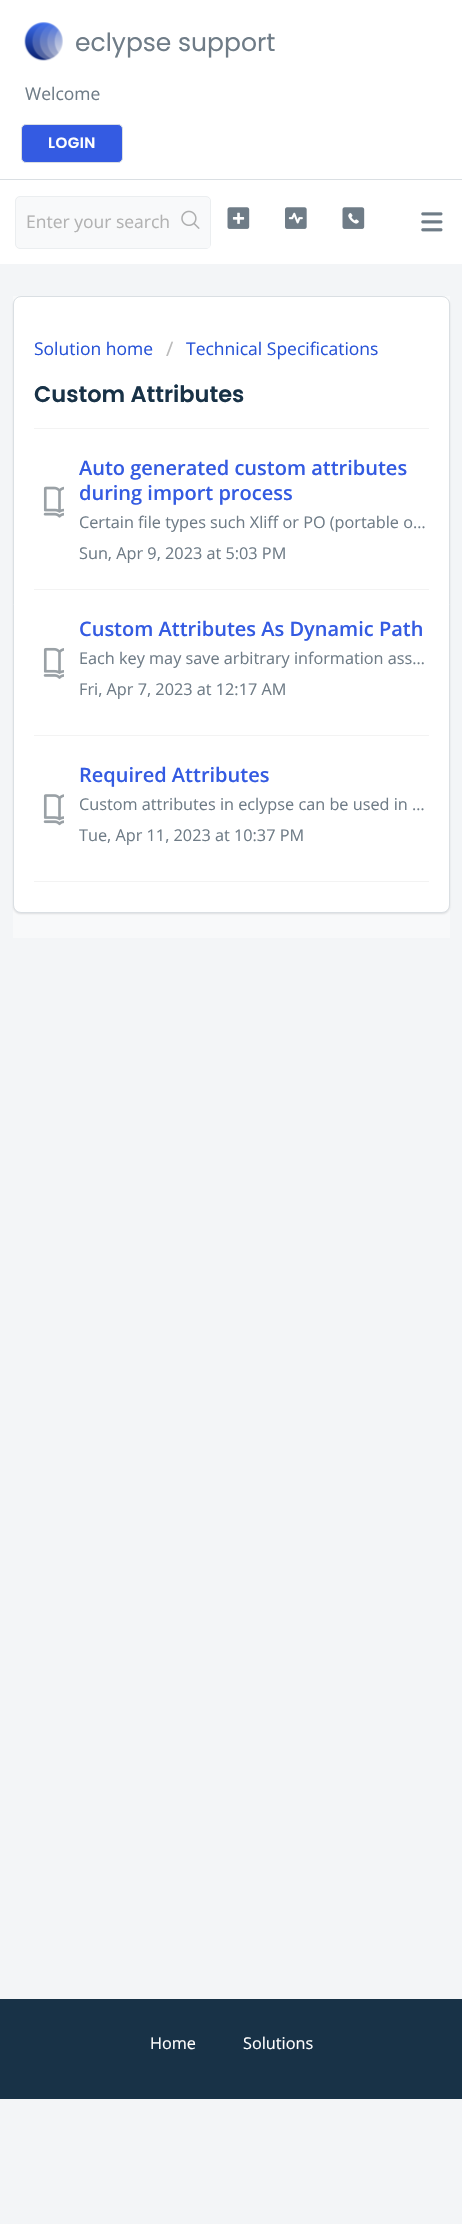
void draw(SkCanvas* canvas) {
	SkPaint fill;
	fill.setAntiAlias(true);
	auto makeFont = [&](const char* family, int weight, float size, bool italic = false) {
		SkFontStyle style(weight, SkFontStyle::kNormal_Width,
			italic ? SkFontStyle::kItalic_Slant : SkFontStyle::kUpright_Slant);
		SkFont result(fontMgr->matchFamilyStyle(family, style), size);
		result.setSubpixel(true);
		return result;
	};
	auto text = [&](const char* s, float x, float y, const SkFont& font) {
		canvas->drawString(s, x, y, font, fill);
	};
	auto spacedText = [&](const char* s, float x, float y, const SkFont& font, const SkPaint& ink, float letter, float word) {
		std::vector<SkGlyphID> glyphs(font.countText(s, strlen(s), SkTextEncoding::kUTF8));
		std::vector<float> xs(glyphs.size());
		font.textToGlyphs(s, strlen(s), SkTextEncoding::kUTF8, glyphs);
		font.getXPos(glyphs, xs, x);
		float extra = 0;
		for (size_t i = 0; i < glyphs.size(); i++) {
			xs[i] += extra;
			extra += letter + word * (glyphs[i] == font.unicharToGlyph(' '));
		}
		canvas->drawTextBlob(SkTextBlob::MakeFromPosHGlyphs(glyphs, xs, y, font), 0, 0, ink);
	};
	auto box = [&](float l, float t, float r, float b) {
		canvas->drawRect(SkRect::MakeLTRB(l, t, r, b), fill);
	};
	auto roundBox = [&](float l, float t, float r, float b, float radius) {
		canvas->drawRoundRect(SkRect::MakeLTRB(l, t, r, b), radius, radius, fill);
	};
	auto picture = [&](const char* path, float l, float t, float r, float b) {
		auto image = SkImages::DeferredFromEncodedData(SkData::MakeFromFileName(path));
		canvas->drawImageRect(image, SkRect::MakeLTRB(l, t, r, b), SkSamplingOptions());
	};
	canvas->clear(0xFFF3F5F7);
	fill.setColor(0xFFFFFFFF);
	box(0, 0, 462, 179);
	fill.setColor(0xFFDADFE3);
	box(0, 179, 462, 180);
	picture("image0.png", 24, 22, 63, 61);
	fill.setColor(0xFF345BE2);
	canvas->drawRoundRect(SkRect::MakeLTRB(21.5f, 124.5f, 122.5f, 162.5f), 4.5f, 4.5f, fill);
	fill.setStyle(SkPaint::kStroke_Style);
	fill.setStrokeWidth(1);
	fill.setColor(0xFFDADFE3);
	canvas->drawRoundRect(SkRect::MakeLTRB(21.5f, 124.5f, 122.5f, 162.5f), 4.5f, 4.5f, fill);
	fill.setStyle(SkPaint::kFill_Style);
	fill.setColor(0xFFFFFFFF);
	box(0, 180, 462, 264);
	picture("image1.png", 421, 212, 443, 232);
	fill.setColor(0xFFF8F9FA);
	canvas->drawRoundRect(SkRect::MakeLTRB(15.5f, 196.5f, 210.5f, 248.5f), 4.5f, 4.5f, fill);
	fill.setStyle(SkPaint::kStroke_Style);
	fill.setColor(0xFFEBEEF0);
	canvas->drawRoundRect(SkRect::MakeLTRB(15.5f, 196.5f, 210.5f, 248.5f), 4.5f, 4.5f, fill);
	fill.setStyle(SkPaint::kFill_Style);
	fill.setColor(0xFFF8F9FA);
	roundBox(171, 198, 210, 248, 2.5f);
	picture("image2.png", 181, 210, 200, 229);
	picture("image3.png", 227, 207, 250, 229);
	picture("image4.png", 285, 207, 307, 229);
	picture("image5.png", 342, 207, 365, 229);
	box(13, 296, 450, 938);
	fill.setColor(0x263F3F44);
	fill.setMaskFilter(SkMaskFilter::MakeBlur(kNormal_SkBlurStyle, 1));
	canvas->drawRoundRect(SkRect::MakeLTRB(13, 298, 450, 914), 8, 8, fill);
	fill.setMaskFilter(nullptr);
	fill.setColor(0xFFFFFFFF);
	canvas->drawRoundRect(SkRect::MakeLTRB(13.5f, 296.5f, 449.5f, 912.5f), 7.5f, 7.5f, fill);
	fill.setStyle(SkPaint::kStroke_Style);
	fill.setColor(0xFFDADFE3);
	canvas->drawRoundRect(SkRect::MakeLTRB(13.5f, 296.5f, 449.5f, 912.5f), 7.5f, 7.5f, fill);
	fill.setStyle(SkPaint::kFill_Style);
	fill.setColor(0xFFF3F3F3);
	box(34, 881, 429, 882);
	box(34, 428, 429, 429);
	picture("image6.png", 43, 486, 64, 518);
	box(34, 589, 429, 590);
	picture("image7.png", 43, 647, 64, 679);
	box(34, 735, 429, 736);
	picture("image8.png", 43, 794, 64, 826);
	fill.setColor(0xFF183247);
	box(0, 1999, 462, 2099);
	auto font1 = makeFont("Poppins", 400, 25);
	fill.setColor(0xFF6F7C87);
	text("eclypse support", 75, 51, font1);
	auto font2 = makeFont("Open Sans", 400, 17.5f);
	text("Welcome", 25, 100, font2);
	auto font3 = makeFont("Poppins", 600, 15);
	fill.setColor(0xFFFFFFFF);
	spacedText("LOGIN", 48, 148, font3, fill, 0.5f, 0);
	fill.setColor(0xFFB2B2B2);
	text("Enter your search", 26, 228, font2);
	fill.setColor(0xFF2753D7);
	text("Solution home", 34, 355, font2);
	auto font4 = makeFont("Open Sans", 400, 20);
	fill.setColor(0xFFBBBBBB);
	text("/", 166, 356, font4);
	fill.setColor(0xFF2753D7);
	text("Technical Specifications", 186, 355, font2);
	auto font5 = makeFont("Poppins", 600, 22.5f);
	fill.setColor(0xFF183247);
	text("Custom Attributes", 34, 402, font5);
	auto font6 = makeFont("Open Sans", 600, 20);
	fill.setColor(0xFF345BE2);
	text("Auto generated custom attributes", 79, 475, font6);
	text("during import process", 79, 500, font6);
	auto font7 = makeFont("Open Sans", 400, 16.25f);
	fill.setColor(0xFF6F7C87);
	text("Certain file types such Xliff or PO (portable o…", 79, 528, font7);
	text("Sun, Apr 9, 2023 at 5:03 PM", 79, 559, font7);
	fill.setColor(0xFF345BE2);
	text("Custom Attributes As Dynamic Path", 79, 636, font6);
	fill.setColor(0xFF6F7C87);
	text("Each key may save arbitrary information ass…", 79, 664, font7);
	text("Fri, Apr 7, 2023 at 12:17 AM", 79, 695, font7);
	fill.setColor(0xFF345BE2);
	text("Required Attributes", 79, 782, font6);
	fill.setColor(0xFF6F7C87);
	text("Custom attributes in eclypse can be used in …", 79, 810, font7);
	text("Tue, Apr 11, 2023 at 10:37 PM", 79, 841, font7);
	fill.setColor(0xFFFFFFFF);
	text("Home", 150, 2049, font7);
	text("Solutions", 243, 2049, font7);
}
